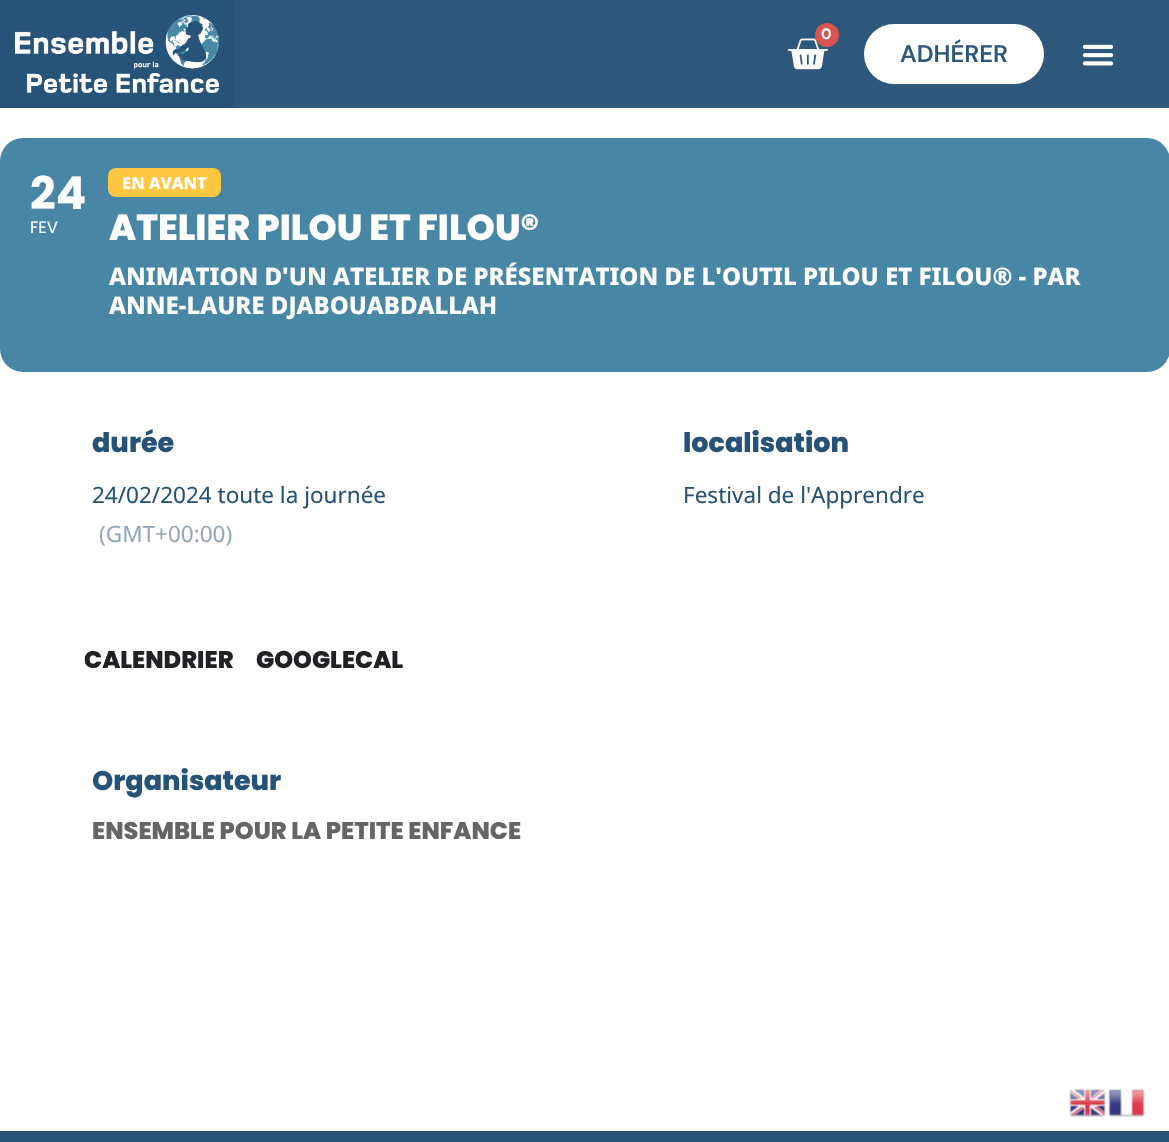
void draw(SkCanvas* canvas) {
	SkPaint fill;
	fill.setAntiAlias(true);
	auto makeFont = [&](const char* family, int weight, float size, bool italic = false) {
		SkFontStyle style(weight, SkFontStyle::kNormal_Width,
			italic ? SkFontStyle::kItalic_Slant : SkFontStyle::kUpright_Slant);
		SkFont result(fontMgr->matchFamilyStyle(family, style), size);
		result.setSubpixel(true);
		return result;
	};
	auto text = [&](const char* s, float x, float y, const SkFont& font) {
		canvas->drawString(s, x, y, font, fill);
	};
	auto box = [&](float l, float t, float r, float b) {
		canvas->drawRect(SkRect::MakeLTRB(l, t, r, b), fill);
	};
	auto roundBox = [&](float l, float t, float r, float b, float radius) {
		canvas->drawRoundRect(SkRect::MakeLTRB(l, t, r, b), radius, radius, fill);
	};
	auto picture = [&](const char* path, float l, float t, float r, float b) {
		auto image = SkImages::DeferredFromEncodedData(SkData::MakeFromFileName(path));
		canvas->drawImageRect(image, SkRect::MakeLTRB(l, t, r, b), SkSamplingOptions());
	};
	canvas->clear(0xFFFFFFFF);
	fill.setColor(0xFF265377);
	box(0, 0, 234, 108);
	picture("image0.png", 15, 15, 219, 93);
	fill.setColor(0xFF2D587B);
	box(234, 0, 1169, 108);
	picture("image1.png", 787, 38, 828, 70);
	fill.setColor(0xFFD9534F);
	canvas->drawCircle(827, 35, 12, fill);
	fill.setColor(0xFFFFFFFF);
	roundBox(864, 24, 1044, 84, 30);
	picture("image2.png", 1082, 44, 1114, 66);
	fill.setColor(0xFF4787A5);
	roundBox(0, 138, 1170, 372, 23);
	fill.setColor(0xFFFFC642);
	roundBox(108, 168, 221, 197, 8);
	picture("image3.png", 1069, 1089, 1106, 1118);
	picture("image4.png", 1108, 1089, 1145, 1118);
	fill.setColor(0xFF265377);
	box(0, 1131, 1169, 1142);
	auto font1 = makeFont("DM Sans", 700, 15);
	fill.setColor(0xFFFFFFFF);
	text("0", 821, 39, font1);
	auto font2 = makeFont("DM Sans", 600, 24);
	fill.setColor(0xFF2D587B);
	text("ADHÉRER", 900, 62, font2);
	auto font3 = makeFont("Poppins", 700, 45);
	fill.setColor(0xFFFFFFFF);
	text("24", 30, 209, font3);
	auto font4 = makeFont("Poppins", 400, 16.5f);
	text("FEV", 30, 233, font4);
	auto font5 = makeFont("Noto Sans", 800, 16.5f);
	text("EN AVANT", 122, 189, font5);
	auto font6 = makeFont("Poppins", 800, 36);
	text("ATELIER PILOU ET FILOU®", 109, 240, font6);
	auto font7 = makeFont("Noto Sans", 800, 24);
	text("ANIMATION D'UN ATELIER DE PRÉSENTATION DE L'OUTIL PILOU ET FILOU® - PAR", 109, 285, font7);
	text("ANNE-LAURE DJABOUABDALLAH", 109, 314, font7);
	auto font8 = makeFont("Poppins", 800, 27);
	fill.setColor(0xFF265277);
	text("durée", 92, 452, font8);
	auto font9 = makeFont("Noto Sans", 400, 22.5f);
	text("24/02/2024 toute la journée", 92, 503, font9);
	fill.setColor(0xFF93A9BB);
	text("(GMT+00:00)", 99, 542, font9);
	fill.setColor(0xFF265277);
	text("localisation", 683, 452, font8);
	text("Festival de l'Apprendre", 683, 503, font9);
	auto font10 = makeFont("Poppins", 800, 24);
	fill.setColor(0xFF202124);
	text("CALENDRIER", 84, 668, font10);
	text("GOOGLECAL", 256, 668, font10);
	fill.setColor(0xFF265277);
	text("Organisateur", 92, 790, font8);
	fill.setColor(0xFF656565);
	text("ENSEMBLE POUR LA PETITE ENFANCE", 92, 839, font10);
}
